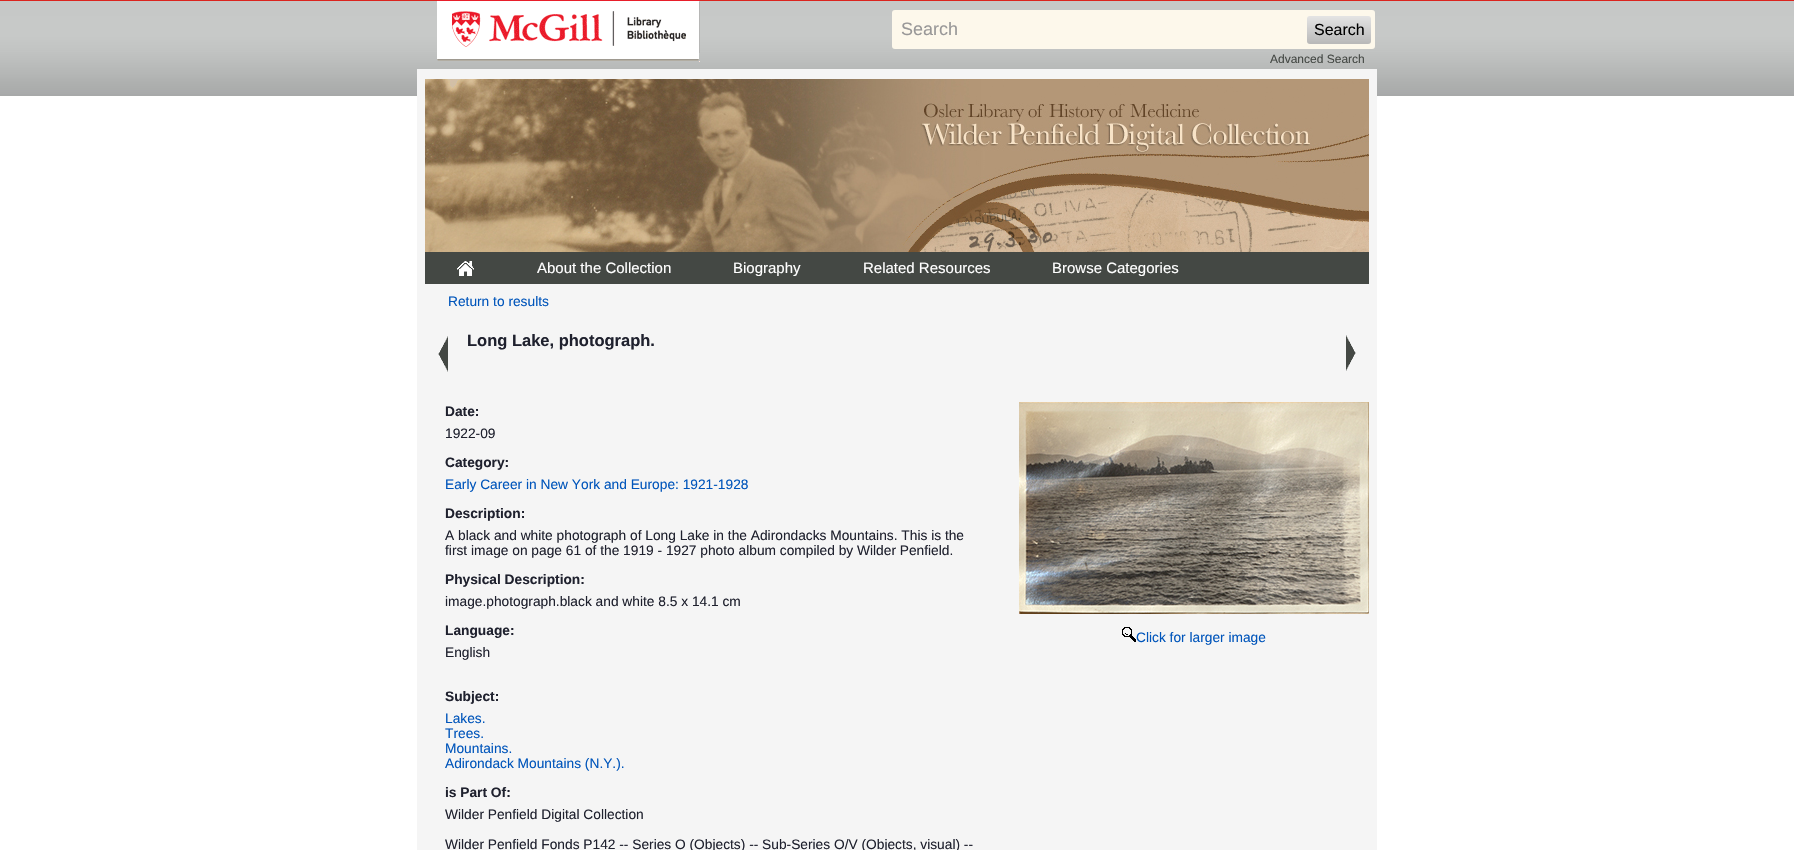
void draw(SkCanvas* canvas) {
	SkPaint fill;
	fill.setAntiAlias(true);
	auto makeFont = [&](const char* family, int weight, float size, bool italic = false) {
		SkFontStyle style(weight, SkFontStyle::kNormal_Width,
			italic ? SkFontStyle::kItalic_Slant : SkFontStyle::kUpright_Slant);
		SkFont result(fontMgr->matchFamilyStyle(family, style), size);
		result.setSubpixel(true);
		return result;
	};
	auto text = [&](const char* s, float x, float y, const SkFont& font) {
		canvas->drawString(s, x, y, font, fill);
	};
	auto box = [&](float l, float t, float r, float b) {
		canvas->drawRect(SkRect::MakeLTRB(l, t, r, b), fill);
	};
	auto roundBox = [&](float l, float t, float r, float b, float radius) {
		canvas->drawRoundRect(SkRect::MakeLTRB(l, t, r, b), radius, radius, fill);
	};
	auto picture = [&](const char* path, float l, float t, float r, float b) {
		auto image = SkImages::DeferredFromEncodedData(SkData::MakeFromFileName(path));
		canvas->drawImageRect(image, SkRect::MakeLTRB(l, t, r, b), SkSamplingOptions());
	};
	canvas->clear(0xFFFFFFFF);
	picture("image0.png", 0, 0, 1794, 96);
	picture("image1.png", 437, 0, 700, 62);
	fill.setColor(0xFFFDF8EB);
	roundBox(892, 10, 1375, 49, 3);
	{
		const SkColor colors[] = {0xFFE4E4E4, 0xFFB8B8B8};
		const float stops[] = {0, 1};
		const SkPoint ends[] = {{1307, 16}, {1307, 44}};
		fill.setShader(SkGradientShader::MakeLinear(ends, colors, stops, 2, SkTileMode::kClamp));
		fill.setAlpha(255);
	}
	roundBox(1307, 16, 1371, 44, 3);
	fill.setShader(nullptr);
	fill.setColor(0xFFF5F5F5);
	box(417, 69, 1377, 850);
	picture("image2.png", 425, 79, 1369, 252);
	fill.setColor(0xFF444844);
	box(425, 252, 1369, 284);
	picture("image3.png", 457, 261, 474, 276);
	picture("image4.png", 438, 336, 448, 372);
	picture("image5.png", 1346, 335, 1356, 371);
	picture("image6.png", 1019, 402, 1369, 614);
	picture("image7.png", 1122, 627, 1136, 642);
	auto font1 = makeFont("Liberation Sans", 400, 18);
	fill.setColor(0xFF999898);
	text("Search", 901, 35, font1);
	auto font2 = makeFont("Liberation Sans", 400, 16);
	fill.setColor(0xFF000000);
	text("Search", 1314, 35, font2);
	auto font3 = makeFont("Liberation Sans", 400, 12);
	fill.setColor(0xFF444844);
	text("Advanced Search", 1270, 63, font3);
	auto font4 = makeFont("Liberation Sans", 400, 15);
	fill.setColor(0xFFFFFFFF);
	text("About the Collection", 537, 273, font4);
	text("Biography", 733, 273, font4);
	text("Related Resources", 863, 273, font4);
	text("Browse Categories", 1052, 273, font4);
	auto font5 = makeFont("Liberation Sans", 400, 13.75f);
	fill.setColor(0xFF0055BB);
	text("Return to results", 448, 306, font5);
	auto font6 = makeFont("Liberation Sans", 700, 16.5f);
	fill.setColor(0xFF1F212E);
	text("Long Lake, photograph.", 467, 346, font6);
	auto font7 = makeFont("Liberation Sans", 700, 13.75f);
	text("Date:", 445, 416, font7);
	text("1922-09", 445, 438, font5);
	text("Category:", 445, 467, font7);
	fill.setColor(0xFF0055BB);
	text("Early Career in New York and Europe: 1921-1928", 445, 489, font5);
	fill.setColor(0xFF1F212E);
	text("Description:", 445, 518, font7);
	text("A black and white photograph of Long Lake in the Adirondacks Mountains. This is the", 445, 540, font5);
	text("first image on page 61 of the 1919 - 1927 photo album compiled by Wilder Penfield.", 445, 555, font5);
	text("Physical Description:", 445, 584, font7);
	text("image.photograph.black and white 8.5 x 14.1 cm", 445, 606, font5);
	text("Language:", 445, 635, font7);
	text("English", 445, 657, font5);
	text("Subject:", 445, 701, font7);
	fill.setColor(0xFF0055BB);
	text("Lakes.", 445, 723, font5);
	text("Trees.", 445, 738, font5);
	text("Mountains.", 445, 753, font5);
	text("Adirondack Mountains (N.Y.).", 445, 768, font5);
	fill.setColor(0xFF1F212E);
	text("is Part Of:", 445, 797, font7);
	text("Wilder Penfield Digital Collection", 445, 819, font5);
	text("Wilder Penfield Fonds P142 -- Series O (Objects) -- Sub-Series O/V (Objects, visual) --", 445, 849, font5);
	fill.setColor(0xFF0055BB);
	text("Click for larger image", 1136, 642, font5);
}
